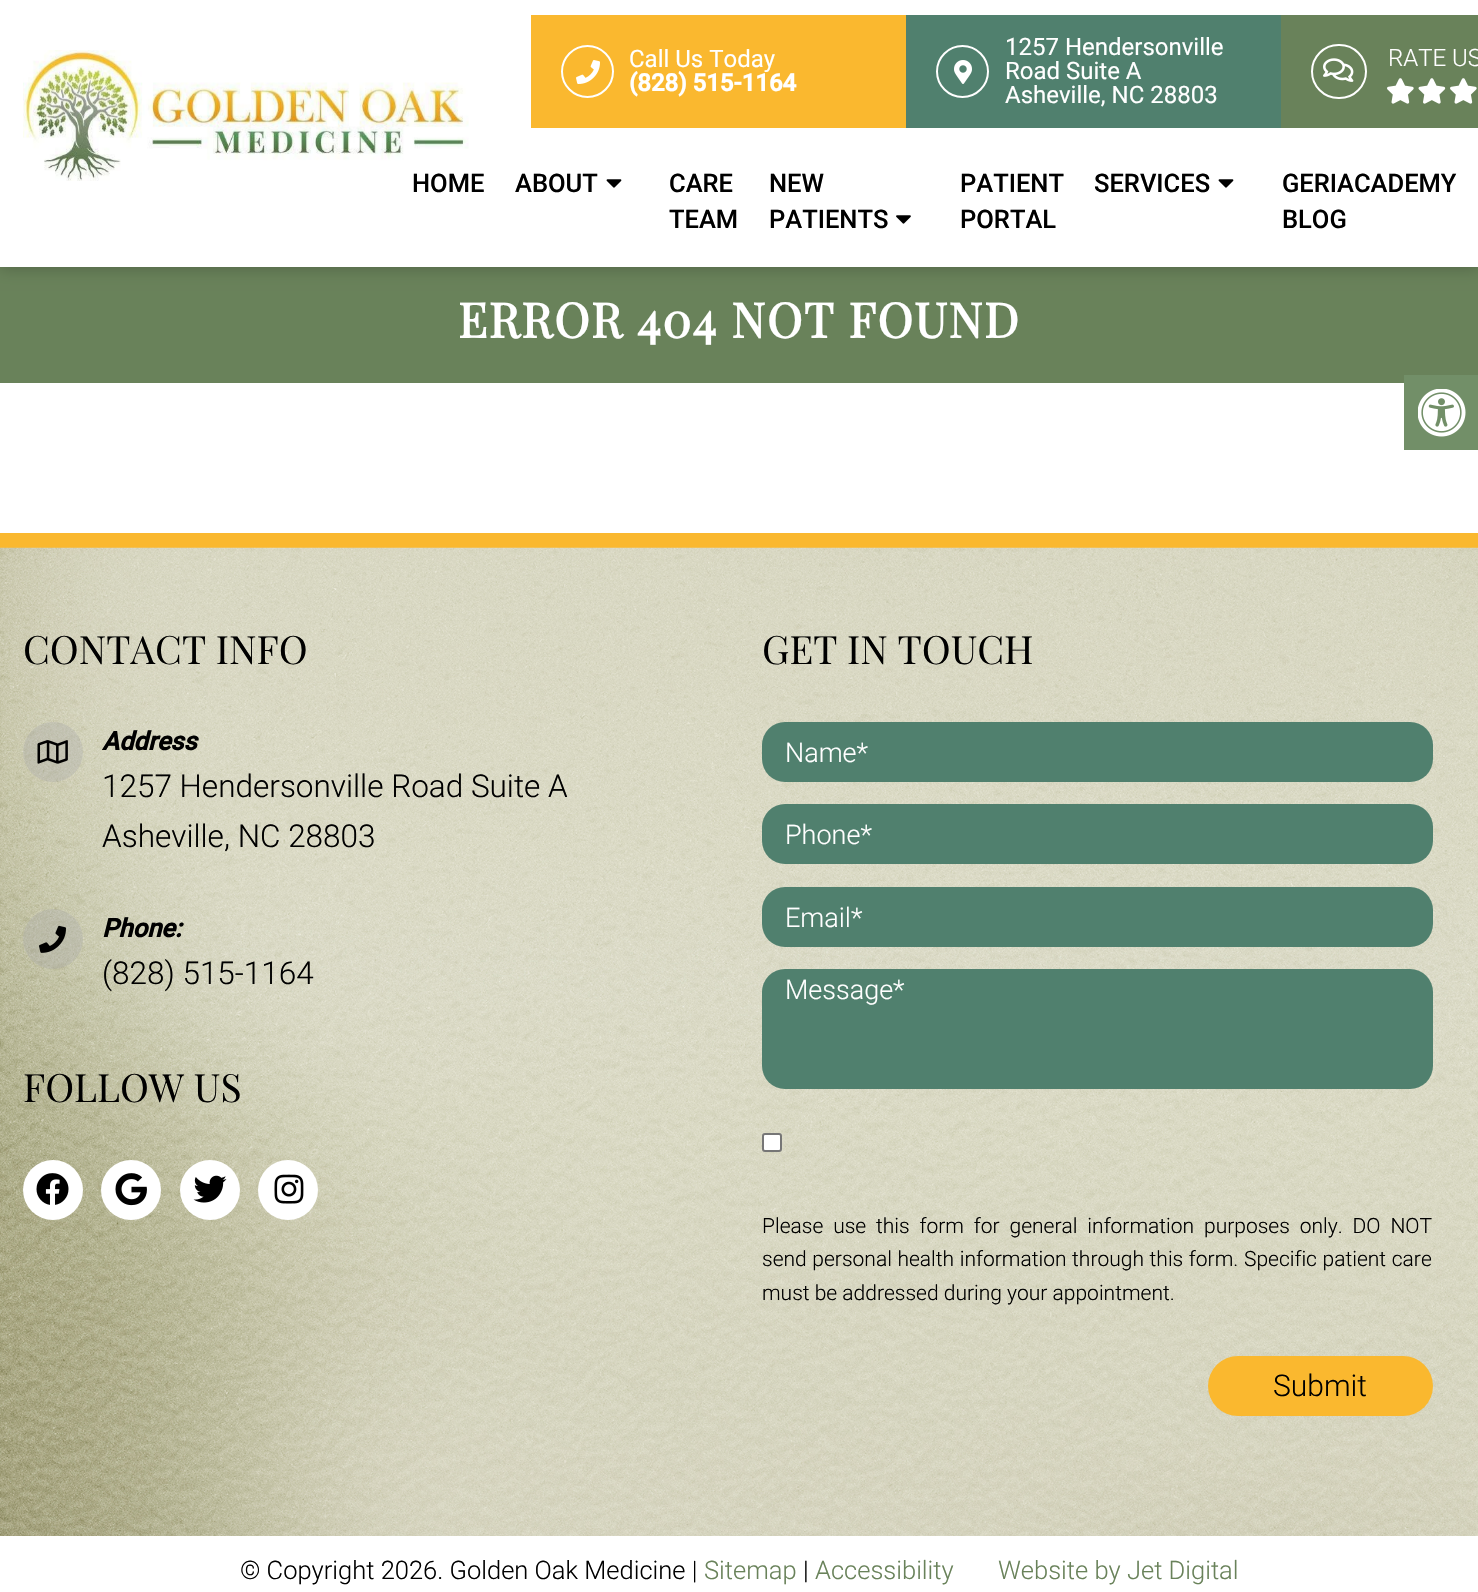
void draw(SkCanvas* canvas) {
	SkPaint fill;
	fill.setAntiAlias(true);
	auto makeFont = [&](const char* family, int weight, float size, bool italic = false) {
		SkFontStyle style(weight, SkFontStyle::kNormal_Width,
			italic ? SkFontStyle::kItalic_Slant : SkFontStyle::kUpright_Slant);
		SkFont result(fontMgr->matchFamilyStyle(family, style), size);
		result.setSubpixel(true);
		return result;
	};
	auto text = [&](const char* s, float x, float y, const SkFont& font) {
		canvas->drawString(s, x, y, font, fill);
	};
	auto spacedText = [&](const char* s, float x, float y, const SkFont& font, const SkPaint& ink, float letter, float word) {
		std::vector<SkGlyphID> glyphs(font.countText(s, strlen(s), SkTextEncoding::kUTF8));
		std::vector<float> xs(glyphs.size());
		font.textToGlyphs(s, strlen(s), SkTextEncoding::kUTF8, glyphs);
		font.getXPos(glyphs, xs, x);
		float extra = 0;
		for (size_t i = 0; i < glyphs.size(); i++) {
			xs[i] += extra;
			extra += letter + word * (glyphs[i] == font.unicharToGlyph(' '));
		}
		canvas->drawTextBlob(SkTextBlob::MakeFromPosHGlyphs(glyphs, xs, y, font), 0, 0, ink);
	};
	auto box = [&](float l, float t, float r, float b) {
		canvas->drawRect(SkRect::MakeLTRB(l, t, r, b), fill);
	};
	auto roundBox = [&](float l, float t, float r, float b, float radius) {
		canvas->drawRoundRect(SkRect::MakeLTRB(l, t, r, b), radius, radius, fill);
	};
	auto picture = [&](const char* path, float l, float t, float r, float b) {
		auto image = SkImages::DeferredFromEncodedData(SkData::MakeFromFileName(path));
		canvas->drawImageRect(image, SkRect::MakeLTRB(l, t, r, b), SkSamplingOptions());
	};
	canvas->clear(0xFFFFFFFF);
	fill.setColor(0xFF69825A);
	box(0, 267, 1478, 383);
	fill.setColor(0x36000000);
	fill.setMaskFilter(SkMaskFilter::MakeBlur(kNormal_SkBlurStyle, 7.5f));
	canvas->drawRect(SkRect::MakeLTRB(0, 2, 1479, 269), fill);
	fill.setMaskFilter(nullptr);
	fill.setColor(0xFFFFFFFF);
	box(0, 0, 1478, 267);
	picture("image0.png", 23, 50, 469, 181);
	fill.setColor(0xFFFAB82F);
	box(531, 15, 906, 128);
	fill.setStyle(SkPaint::kStroke_Style);
	fill.setStrokeWidth(2);
	fill.setColor(0xFFFFFFFF);
	canvas->drawCircle(587.5f, 71.5f, 25.5f, fill);
	picture("image1.png", 576, 60, 600, 84);
	fill.setStyle(SkPaint::kFill_Style);
	fill.setColor(0xFF50806E);
	box(906, 15, 1281, 128);
	fill.setStyle(SkPaint::kStroke_Style);
	fill.setColor(0xFFFFFFFF);
	canvas->drawCircle(962.5f, 71.5f, 25.5f, fill);
	picture("image2.png", 954, 60, 972, 84);
	fill.setStyle(SkPaint::kFill_Style);
	fill.setColor(0xFF69825A);
	box(1281, 15, 1478, 128);
	fill.setStyle(SkPaint::kStroke_Style);
	fill.setColor(0xFFFFFFFF);
	canvas->drawRoundRect(SkRect::MakeLTRB(1312, 45, 1366, 98), 26.5f, 26.5f, fill);
	picture("image3.png", 1323, 58, 1354, 82);
	picture("image4.png", 1387, 78, 1414, 104);
	picture("image5.png", 1418, 78, 1446, 104);
	picture("image4.png", 1450, 78, 1477, 104);
	picture("image6.png", 606, 179, 622, 188);
	picture("image7.png", 896, 215, 911, 224);
	picture("image6.png", 1218, 179, 1234, 188);
	fill.setStyle(SkPaint::kFill_Style);
	fill.setColor(0xFFFAB82F);
	box(0, 533, 1478, 548);
	picture("image8.png", 0, 547, 1478, 1536);
	fill.setColor(0x57ABABAB);
	canvas->drawCircle(53, 752, 30, fill);
	picture("image9.png", 37, 740, 68, 764);
	canvas->drawCircle(53, 939, 30, fill);
	picture("image10.png", 39, 925, 66, 953);
	fill.setColor(0xFFFFFFFF);
	canvas->drawCircle(53, 1190, 30, fill);
	picture("image11.png", 36, 1173, 69, 1205);
	canvas->drawCircle(131, 1190, 30, fill);
	picture("image12.png", 115, 1173, 147, 1206);
	canvas->drawCircle(210, 1190, 30, fill);
	picture("image13.png", 193, 1175, 227, 1203);
	canvas->drawCircle(288, 1190, 30, fill);
	picture("image14.png", 274, 1174, 304, 1204);
	fill.setColor(0xFF50806E);
	roundBox(762, 722, 1433, 782, 23);
	roundBox(762, 804, 1433, 864, 23);
	roundBox(762, 887, 1433, 947, 23);
	roundBox(762, 969, 1433, 1089, 23);
	fill.setColor(0xFFFFFFFF);
	canvas->drawRoundRect(SkRect::MakeLTRB(763, 1134, 781, 1151), 2, 2, fill);
	fill.setStyle(SkPaint::kStroke_Style);
	fill.setColor(0xFF767676);
	canvas->drawRoundRect(SkRect::MakeLTRB(763, 1134, 781, 1151), 2, 2, fill);
	fill.setStyle(SkPaint::kFill_Style);
	fill.setColor(0xFFFAB82F);
	roundBox(1208, 1356, 1433, 1416, 30);
	fill.setColor(0xFF728F68);
	box(1404, 375, 1478, 450);
	picture("image15.png", 1418, 389, 1466, 437);
	auto font1 = makeFont("Roboto", 400, 24);
	fill.setColor(0xFFFFFFFF);
	text("Call Us Today", 629, 67, font1);
	auto font2 = makeFont("Roboto", 700, 24);
	text("(828) 515-1164", 629, 91, font2);
	text("1257 Hendersonville", 1005, 55, font1);
	text("Road Suite A", 1005, 79, font1);
	text("Asheville, NC 28803", 1005, 103, font1);
	auto font3 = makeFont("Roboto", 300, 24);
	text("RATE US", 1388, 66, font3);
	auto font4 = makeFont("Roboto", 500, 25.5f);
	fill.setColor(0xFF000000);
	text("HOME", 412, 192, font4);
	text("ABOUT", 515, 192, font4);
	text("CARE", 669, 192, font4);
	text("TEAM", 669, 228, font4);
	text("NEW", 769, 192, font4);
	text("PATIENTS", 769, 228, font4);
	text("PATIENT", 960, 192, font4);
	text("PORTAL", 960, 228, font4);
	text("SERVICES", 1094, 192, font4);
	text("GERIACADEMY", 1282, 192, font4);
	text("BLOG", 1282, 228, font4);
	auto font5 = makeFont("Playfair Display", 700, 48);
	fill.setColor(0xFFFFFFFF);
	spacedText("ERROR 404 NOT FOUND", 458, 338, font5, fill, 1.5f, 0);
	auto font6 = makeFont("Playfair Display", 400, 39);
	fill.setColor(0xFF000000);
	text("CONTACT INFO", 23, 664, font6);
	auto font7 = makeFont("Roboto", 700, 25.5f, true);
	text("Address", 102, 750, font7);
	auto font8 = makeFont("Roboto", 300, 31.5f);
	text("1257 Hendersonville Road Suite A", 102, 797, font8);
	text("Asheville, NC 28803", 102, 847, font8);
	text("Phone:", 102, 937, font7);
	text("(828) 515-1164", 102, 984, font8);
	text("FOLLOW US", 23, 1102, font6);
	text("GET IN TOUCH", 762, 664, font6);
	auto font9 = makeFont("Roboto", 300, 27);
	fill.setColor(0xFFFFFFFF);
	text("Name*", 785, 762, font9);
	text("Phone*", 785, 844, font9);
	text("Email*", 785, 927, font9);
	text("Message*", 785, 999, font9);
	auto font10 = makeFont("Roboto", 300, 21);
	fill.setColor(0xFF000000);
	spacedText("Please use this form for general information purposes only. DO NOT", 762, 1233, font10, fill, 0, 4.75f);
	spacedText("send personal health information through this form. Specific patient care", 762, 1266, font10, fill, 0, 0.5f);
	text("must be addressed during your appointment.", 762, 1300, font10);
	auto font11 = makeFont("Roboto", 300, 30);
	text("Submit", 1273, 1396, font11);
	auto font12 = makeFont("Roboto", 300, 25.5f);
	text("© Copyright 2026. Golden Oak Medicine |", 240, 1579, font12);
	fill.setColor(0xFF69825A);
	text("Sitemap", 704, 1579, font12);
	fill.setColor(0xFF000000);
	text("|", 803, 1579, font12);
	fill.setColor(0xFF69825A);
	text("Accessibility", 815, 1579, font12);
	text("Website by Jet Digital", 998, 1579, font12);
}
